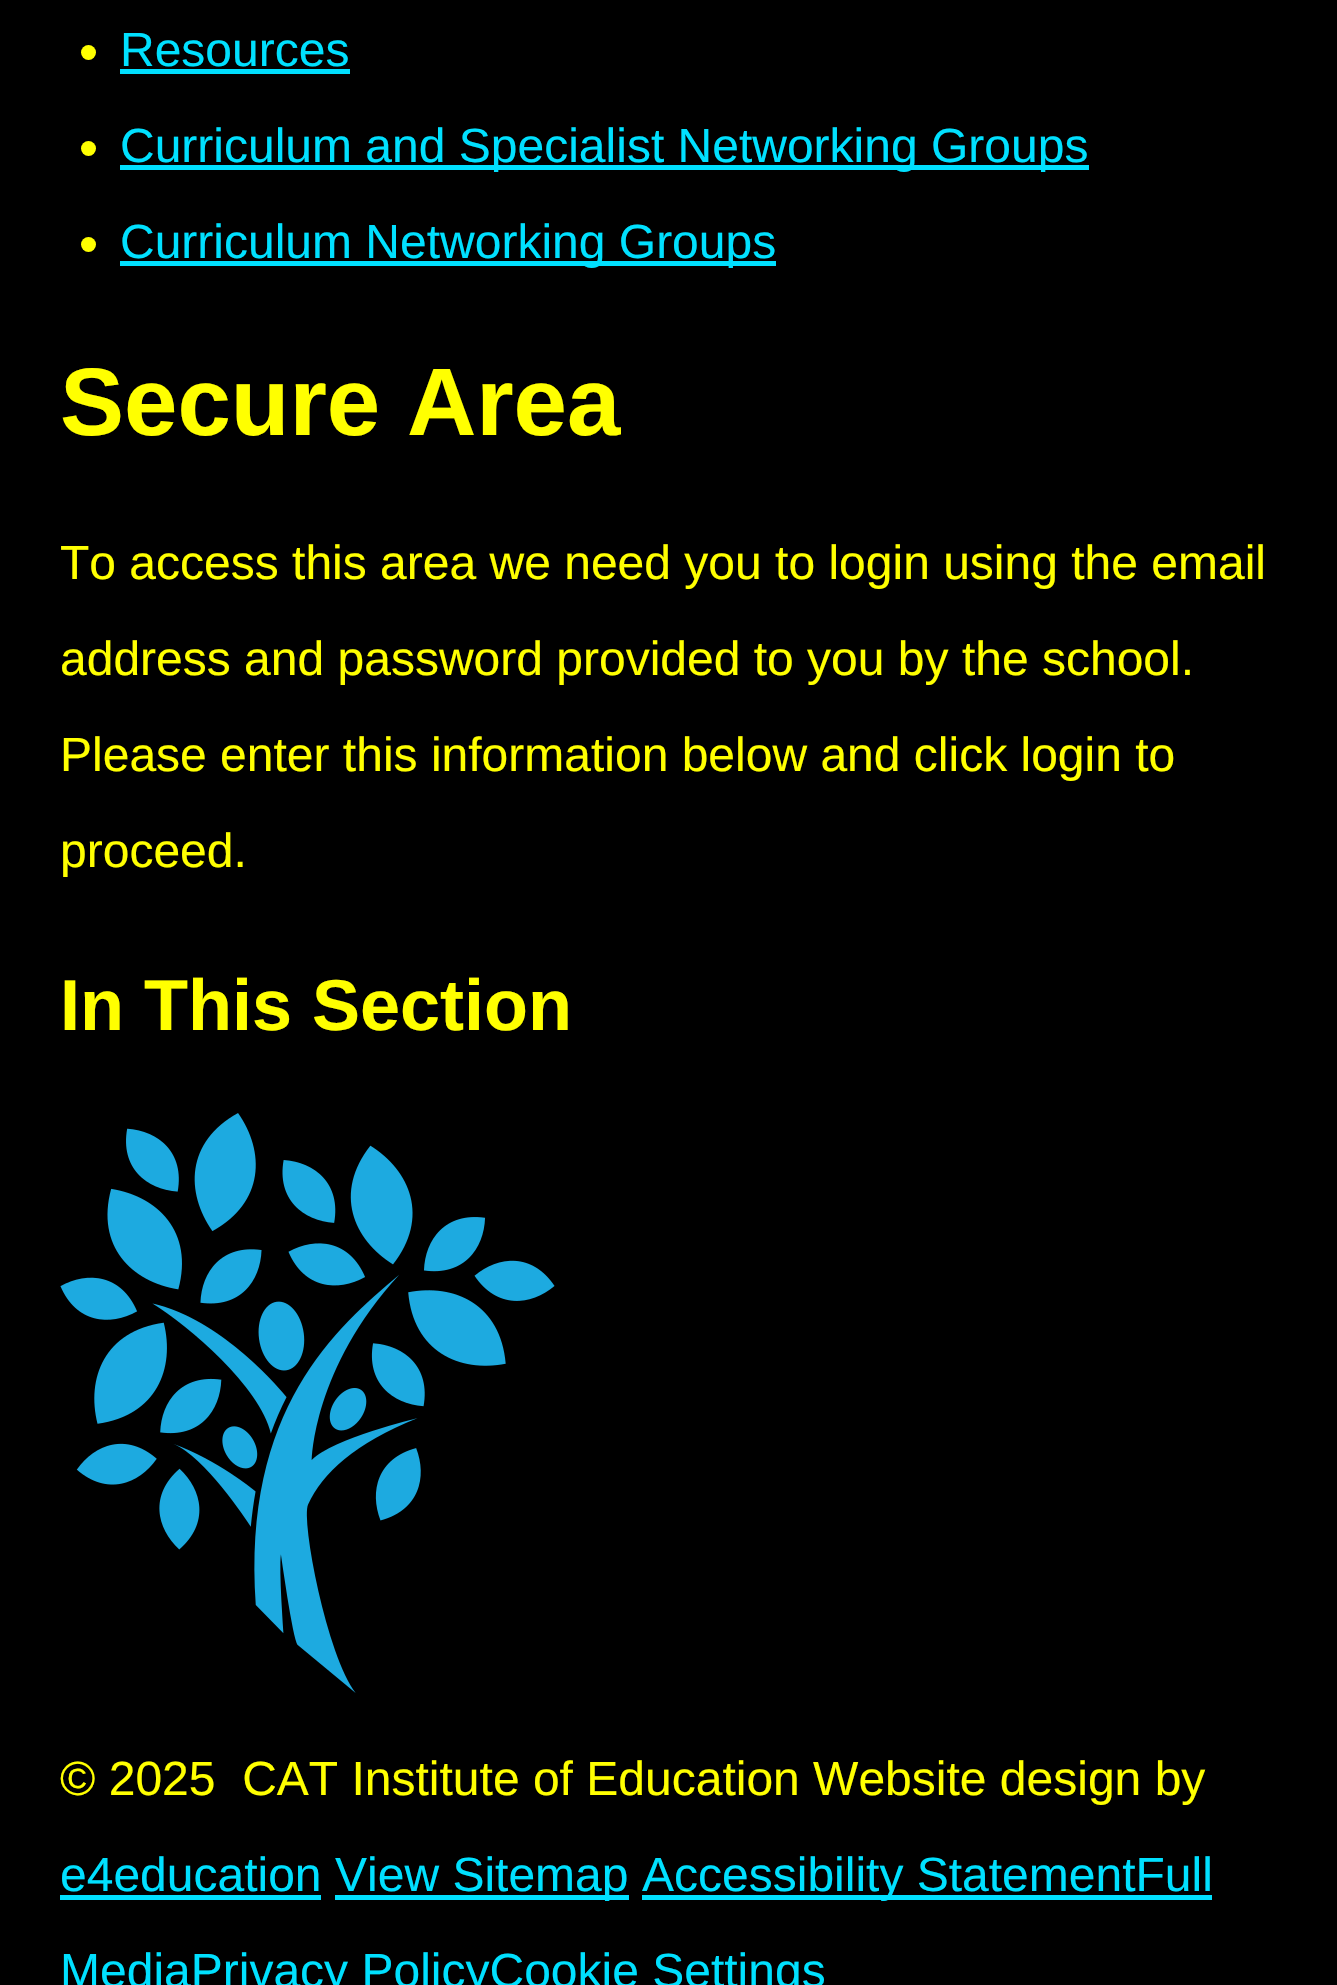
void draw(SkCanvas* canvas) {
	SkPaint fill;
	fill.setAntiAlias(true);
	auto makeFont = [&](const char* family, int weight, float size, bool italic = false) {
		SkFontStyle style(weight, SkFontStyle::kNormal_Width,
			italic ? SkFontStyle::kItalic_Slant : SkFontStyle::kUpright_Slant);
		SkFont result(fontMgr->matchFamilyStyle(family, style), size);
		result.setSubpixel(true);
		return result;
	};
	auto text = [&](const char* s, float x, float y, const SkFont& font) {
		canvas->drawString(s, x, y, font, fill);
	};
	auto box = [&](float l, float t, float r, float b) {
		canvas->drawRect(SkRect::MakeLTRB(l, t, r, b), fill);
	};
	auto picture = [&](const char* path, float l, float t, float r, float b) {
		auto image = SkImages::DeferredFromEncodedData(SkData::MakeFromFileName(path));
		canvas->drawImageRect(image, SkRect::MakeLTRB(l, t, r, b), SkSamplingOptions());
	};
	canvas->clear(0xFF000000);
	fill.setColor(0xFFFFFF00);
	canvas->drawCircle(88.5f, 52.5f, 7.5f, fill);
	fill.setColor(0xFF00E0FF);
	box(120, 69, 350, 74);
	fill.setColor(0xFFFFFF00);
	canvas->drawCircle(88.5f, 148.5f, 7.5f, fill);
	fill.setColor(0xFF00E0FF);
	box(120, 165, 1089, 170);
	fill.setColor(0xFFFFFF00);
	canvas->drawCircle(88.5f, 244.5f, 7.5f, fill);
	fill.setColor(0xFF00E0FF);
	box(120, 261, 776, 266);
	picture("image0.png", 60, 1113, 555, 1693);
	box(60, 1895, 321, 1900);
	box(335, 1895, 629, 1900);
	box(642, 1895, 1212, 1900);
	auto font1 = makeFont("Liberation Sans", 400, 48);
	text("Resources", 120, 66, font1);
	text("Curriculum and Specialist Networking Groups", 120, 162, font1);
	text("Curriculum Networking Groups", 120, 258, font1);
	auto font2 = makeFont("Liberation Sans", 700, 96);
	fill.setColor(0xFFFFFF00);
	text("Secure Area", 60, 435, font2);
	text("To access this area we need you to login using the email", 60, 579, font1);
	text("address and password provided to you by the school.", 60, 675, font1);
	text("Please enter this information below and click login to", 60, 771, font1);
	text("proceed.", 60, 867, font1);
	auto font3 = makeFont("Liberation Sans", 700, 72);
	text("In This Section", 60, 1030, font3);
	text("© 2025  CAT Institute of Education Website design by", 60, 1795, font1);
	fill.setColor(0xFF00E0FF);
	text("e4education", 60, 1891, font1);
	text("View Sitemap", 335, 1891, font1);
	text("Accessibility StatementFull", 642, 1891, font1);
	text("MediaPrivacy PolicyCookie Settings", 60, 1987, font1);
}
